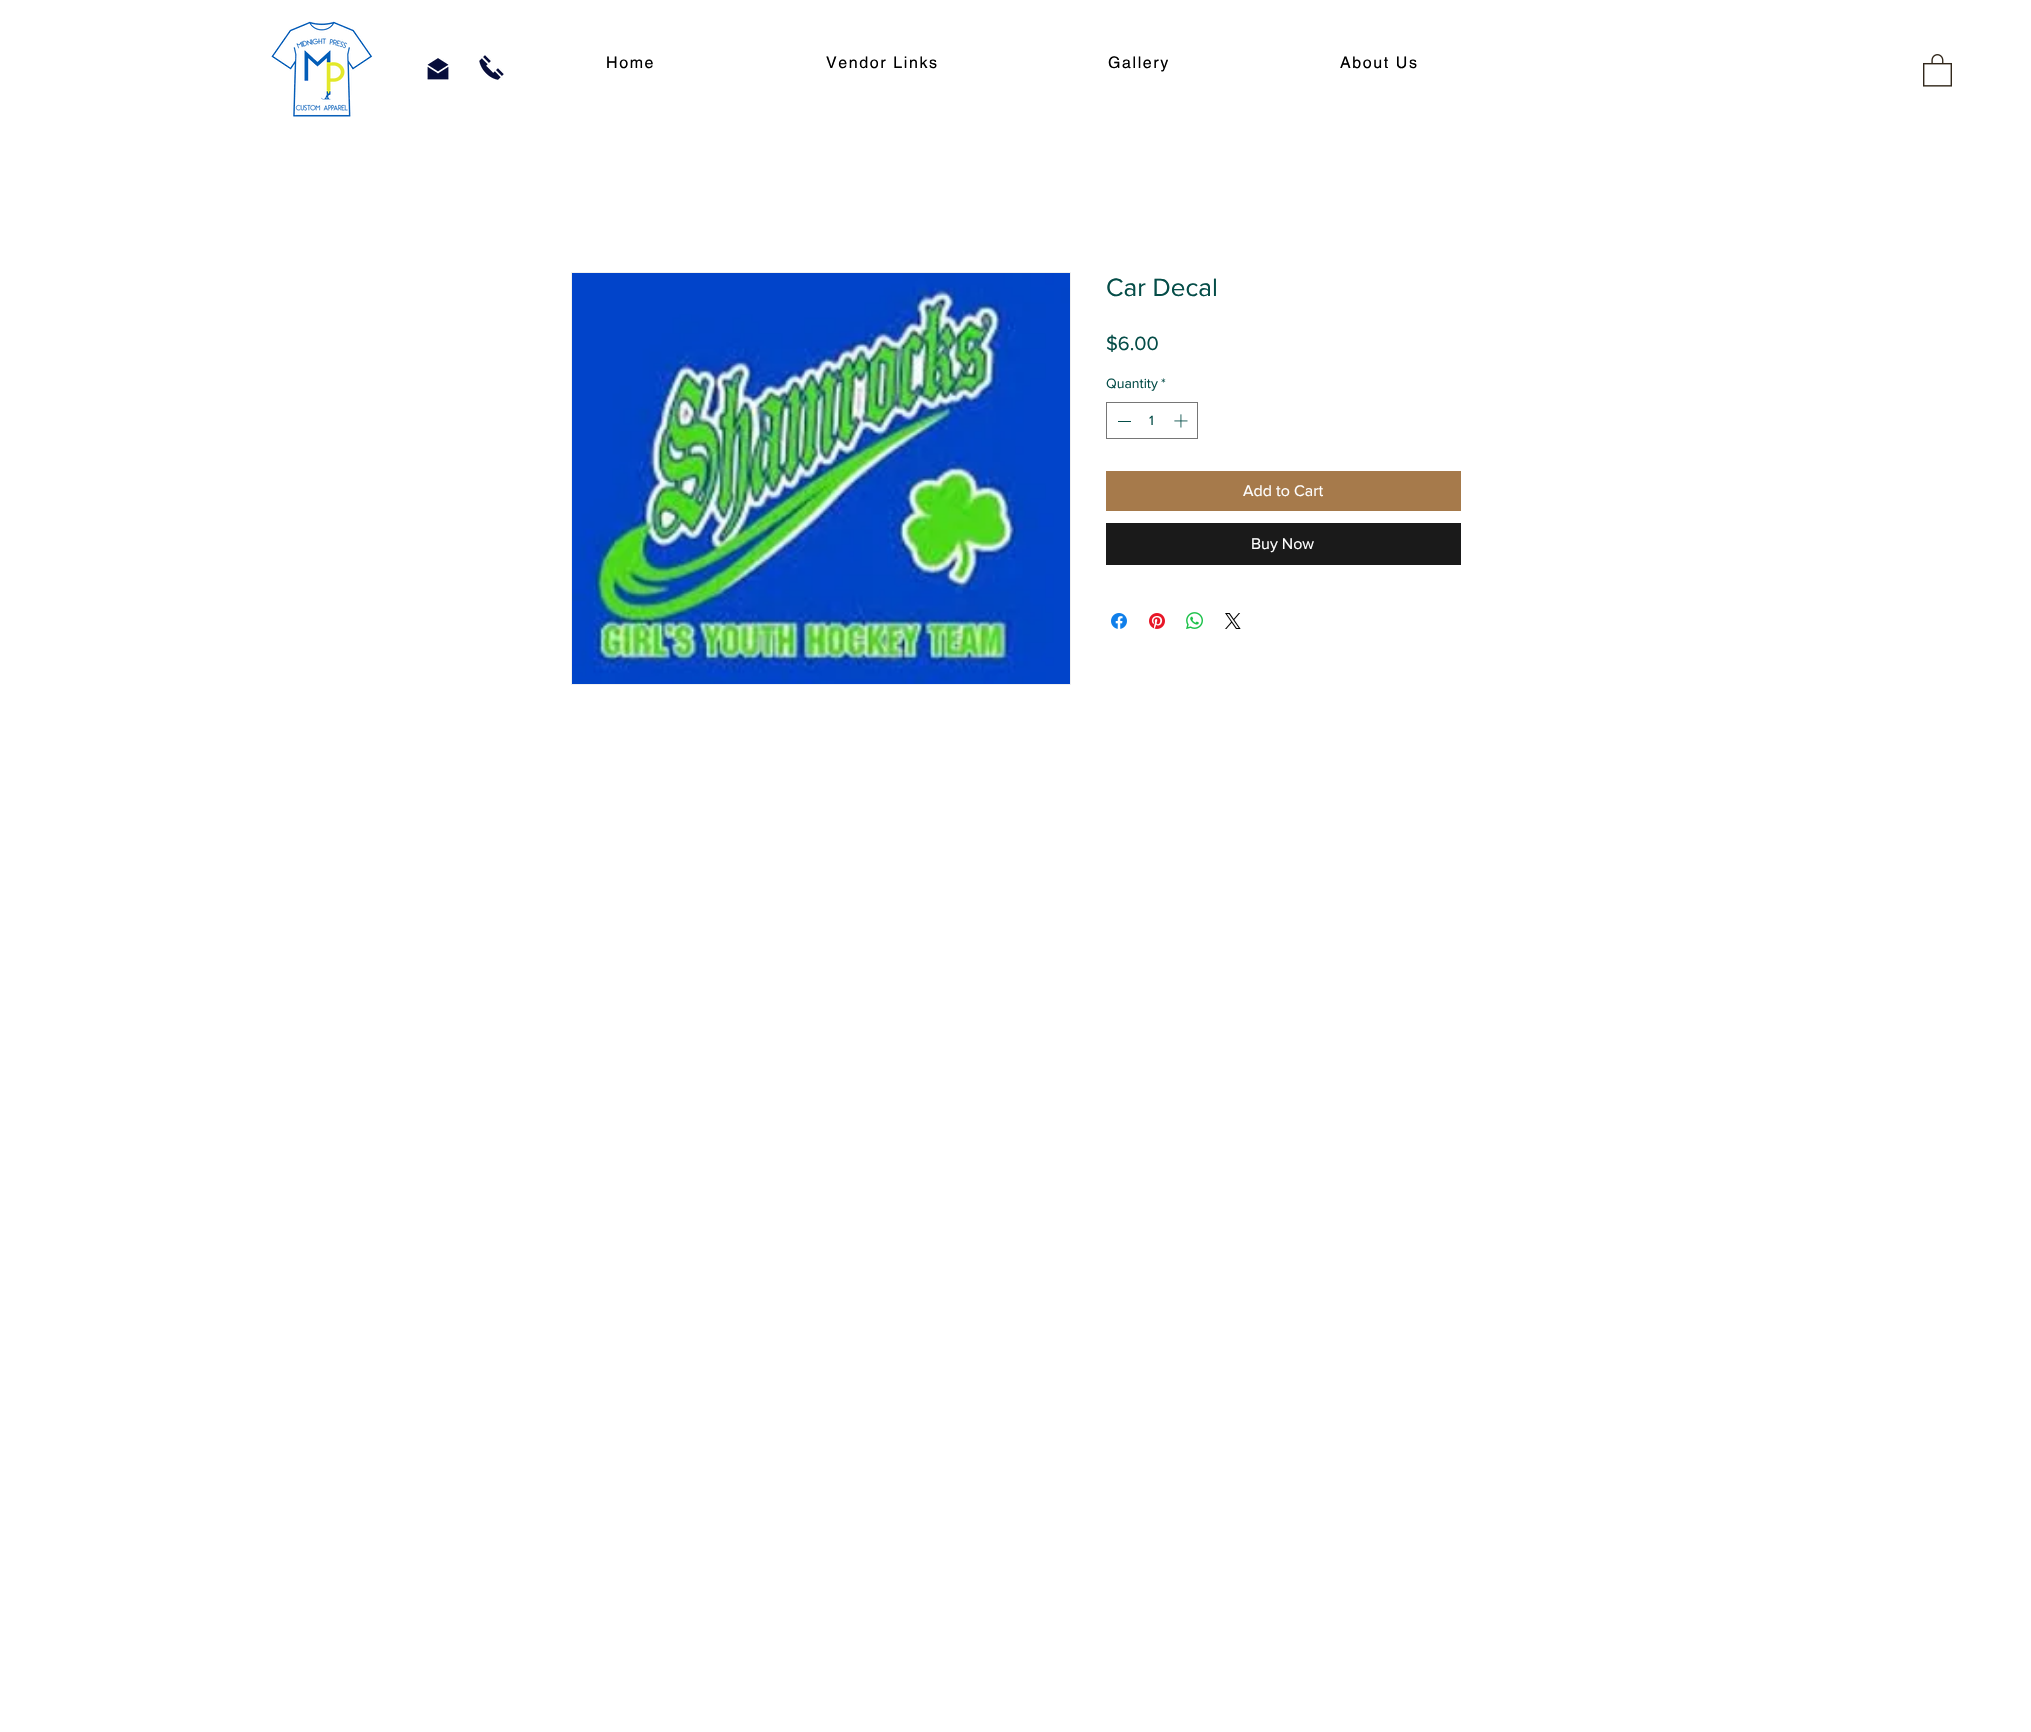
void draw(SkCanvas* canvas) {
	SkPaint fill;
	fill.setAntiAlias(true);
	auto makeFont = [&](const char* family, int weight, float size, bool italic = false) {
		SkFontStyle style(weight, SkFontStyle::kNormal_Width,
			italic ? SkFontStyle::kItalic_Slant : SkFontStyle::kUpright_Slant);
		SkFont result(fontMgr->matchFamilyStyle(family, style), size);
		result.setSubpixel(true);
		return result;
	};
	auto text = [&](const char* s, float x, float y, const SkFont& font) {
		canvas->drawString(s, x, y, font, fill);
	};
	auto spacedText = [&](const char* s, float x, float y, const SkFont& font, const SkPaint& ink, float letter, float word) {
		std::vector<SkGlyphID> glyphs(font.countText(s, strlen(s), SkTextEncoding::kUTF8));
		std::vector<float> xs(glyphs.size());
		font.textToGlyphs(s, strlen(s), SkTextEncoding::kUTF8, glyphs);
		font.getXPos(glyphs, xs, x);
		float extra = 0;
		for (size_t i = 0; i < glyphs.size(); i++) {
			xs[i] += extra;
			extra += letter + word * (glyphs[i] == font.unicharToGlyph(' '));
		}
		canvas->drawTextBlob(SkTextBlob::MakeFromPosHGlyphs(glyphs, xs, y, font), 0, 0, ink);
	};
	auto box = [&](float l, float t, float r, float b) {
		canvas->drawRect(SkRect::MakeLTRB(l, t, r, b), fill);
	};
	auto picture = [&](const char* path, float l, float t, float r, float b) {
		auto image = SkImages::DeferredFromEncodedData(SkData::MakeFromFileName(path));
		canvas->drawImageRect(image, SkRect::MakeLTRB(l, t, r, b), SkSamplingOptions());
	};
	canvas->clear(0xFFFFFFFF);
	picture("image0.png", 271, 21, 373, 117);
	picture("image1.png", 427, 58, 449, 80);
	picture("image2.png", 479, 55, 504, 80);
	picture("image3.png", 1923, 54, 1952, 87);
	fill.setStyle(SkPaint::kStroke_Style);
	fill.setStrokeWidth(1);
	fill.setColor(0xFFF0F0F0);
	canvas->drawRect(SkRect::MakeLTRB(571.5f, 272.5f, 1070.5f, 684.5f), fill);
	picture("image4.png", 572, 273, 1070, 684);
	fill.setColor(0xFF767676);
	canvas->drawRect(SkRect::MakeLTRB(1106.5f, 402.5f, 1197.5f, 438.5f), fill);
	fill.setStyle(SkPaint::kFill_Style);
	fill.setColor(0xFF054D48);
	box(1118, 421, 1131, 422);
	picture("image5.png", 1174, 414, 1188, 428);
	fill.setColor(0xFFA67A4B);
	box(1106, 471, 1461, 511);
	fill.setColor(0xFF1A1A1A);
	box(1106, 523, 1461, 565);
	picture("image6.png", 1111, 613, 1127, 629);
	picture("image7.png", 1149, 613, 1165, 629);
	picture("image8.png", 1186, 612, 1203, 629);
	picture("image9.png", 1225, 613, 1241, 629);
	auto font1 = makeFont("helvetica", 400, 16);
	fill.setColor(0xFF000000);
	spacedText("Home", 606, 68, font1, fill, 1.6f, 0);
	spacedText("Vendor Links", 826, 68, font1, fill, 1.6f, 0);
	spacedText("Gallery", 1108, 68, font1, fill, 1.6f, 0);
	spacedText("About Us", 1340, 68, font1, fill, 1.6f, 0);
	auto font2 = makeFont("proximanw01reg", 400, 26);
	fill.setColor(0xFF054D48);
	text("Car Decal", 1106, 296, font2);
	auto font3 = makeFont("proximanw01reg", 400, 20);
	text("$6.00", 1106, 350, font3);
	auto font4 = makeFont("proximanw01reg", 400, 14);
	text("Quantity", 1106, 388, font4);
	text("*", 1161, 388, font4);
	text("1", 1149, 425, font4);
	auto font5 = makeFont("proximanw01reg", 400, 16);
	fill.setColor(0xFFFFFFFF);
	text("Add to Cart", 1243, 496, font5);
	text("Buy Now", 1251, 549, font5);
}
